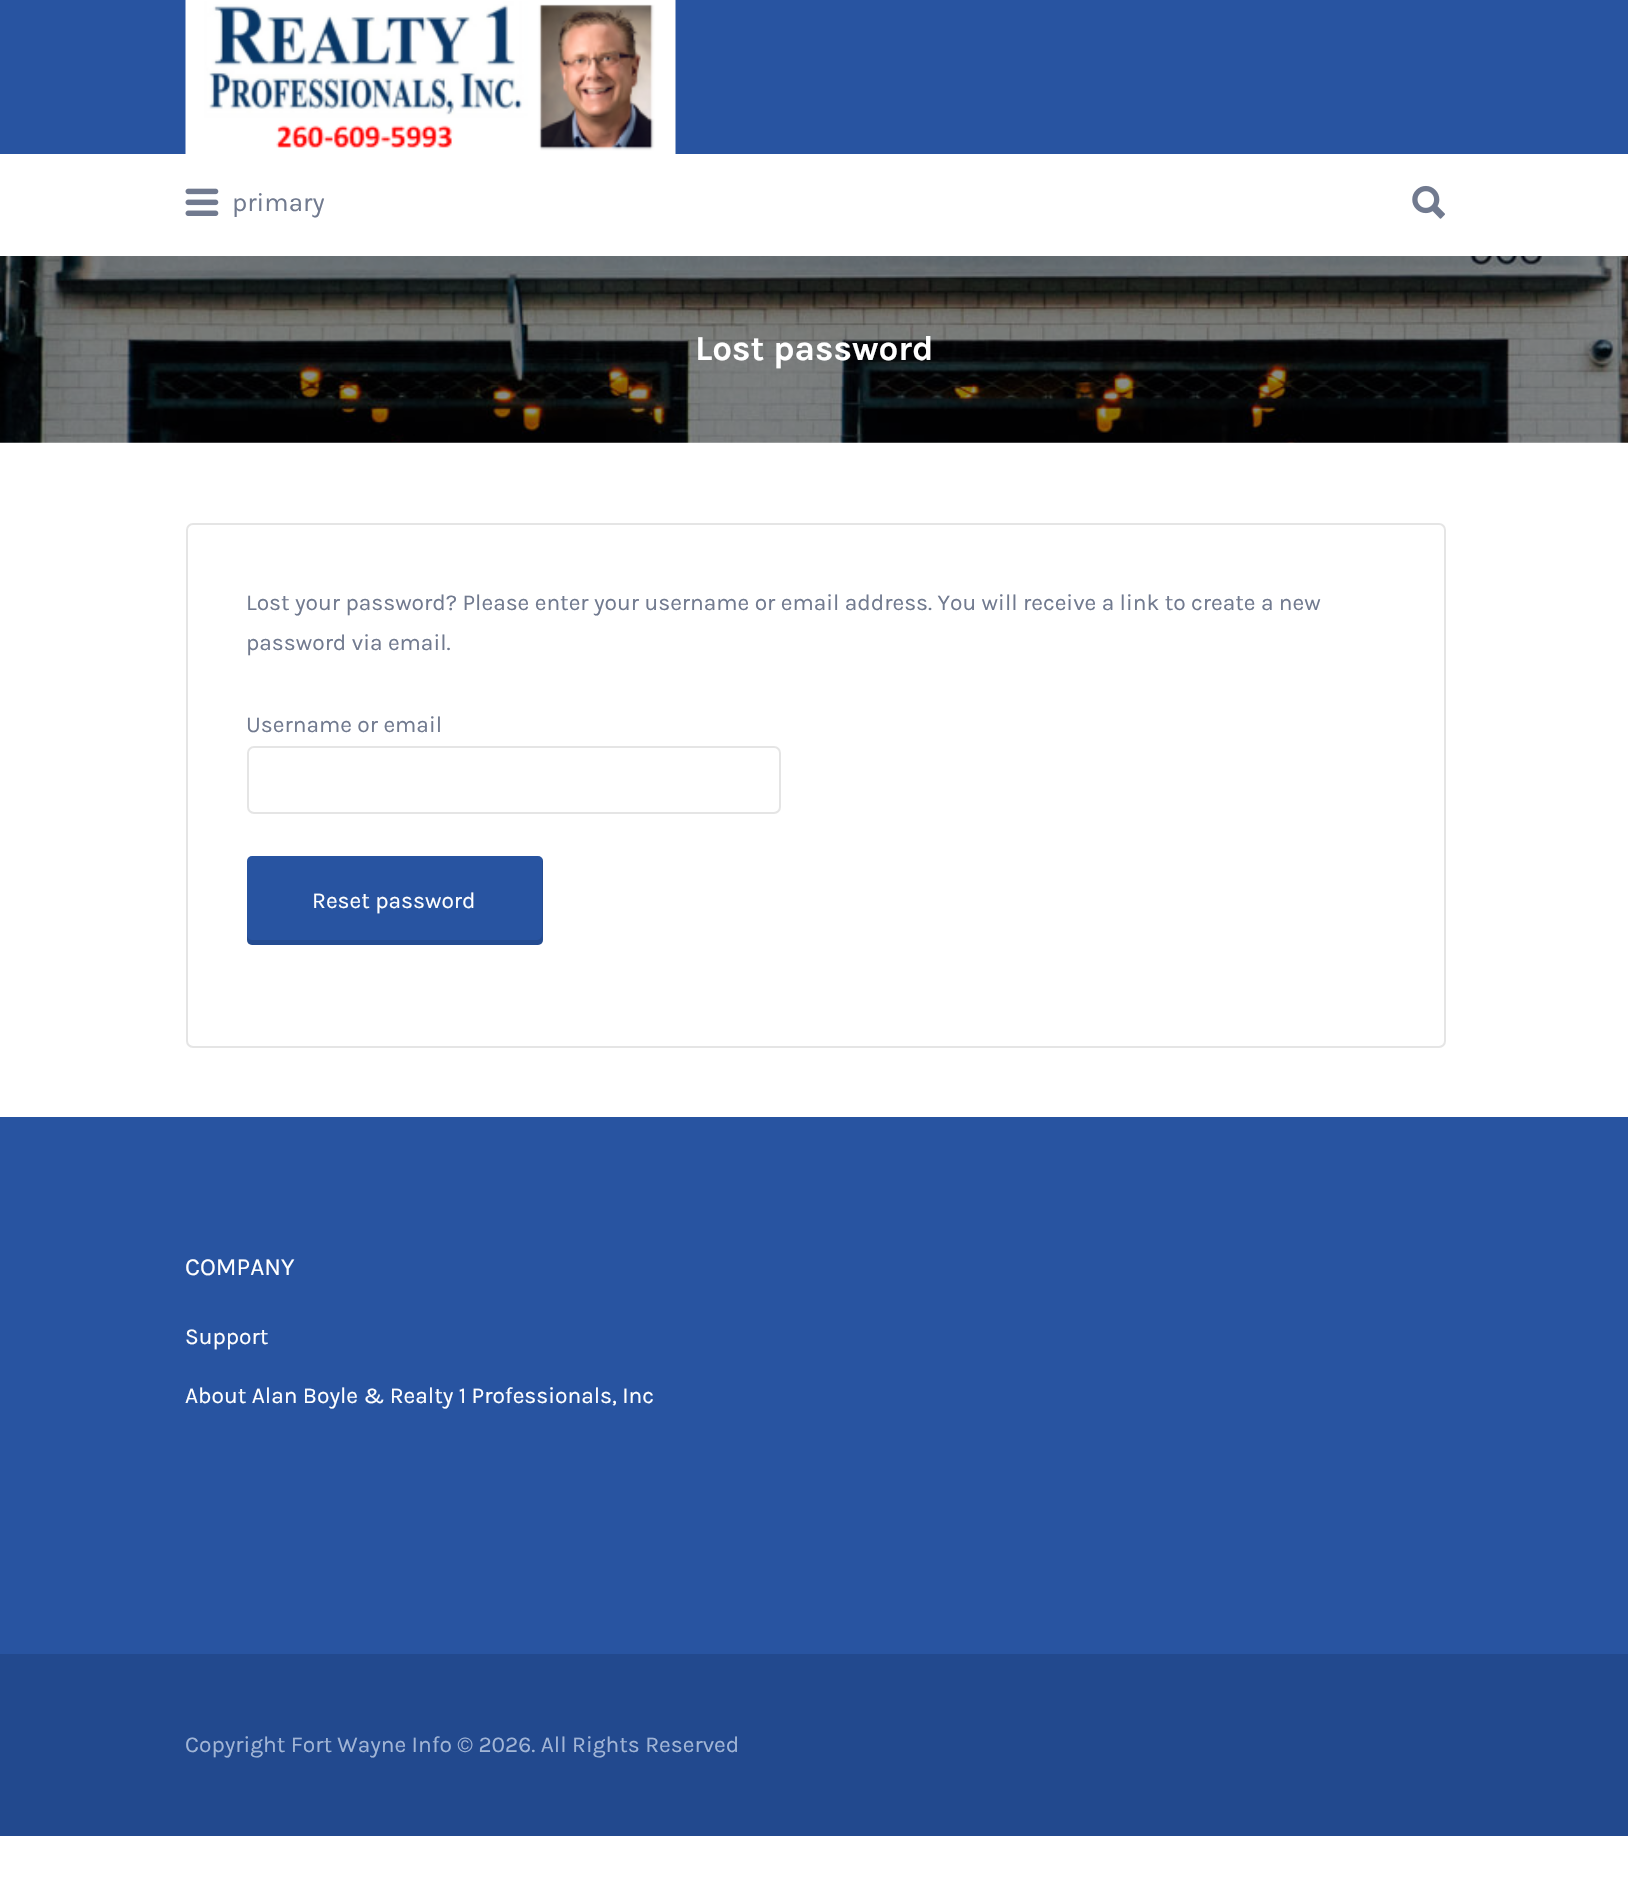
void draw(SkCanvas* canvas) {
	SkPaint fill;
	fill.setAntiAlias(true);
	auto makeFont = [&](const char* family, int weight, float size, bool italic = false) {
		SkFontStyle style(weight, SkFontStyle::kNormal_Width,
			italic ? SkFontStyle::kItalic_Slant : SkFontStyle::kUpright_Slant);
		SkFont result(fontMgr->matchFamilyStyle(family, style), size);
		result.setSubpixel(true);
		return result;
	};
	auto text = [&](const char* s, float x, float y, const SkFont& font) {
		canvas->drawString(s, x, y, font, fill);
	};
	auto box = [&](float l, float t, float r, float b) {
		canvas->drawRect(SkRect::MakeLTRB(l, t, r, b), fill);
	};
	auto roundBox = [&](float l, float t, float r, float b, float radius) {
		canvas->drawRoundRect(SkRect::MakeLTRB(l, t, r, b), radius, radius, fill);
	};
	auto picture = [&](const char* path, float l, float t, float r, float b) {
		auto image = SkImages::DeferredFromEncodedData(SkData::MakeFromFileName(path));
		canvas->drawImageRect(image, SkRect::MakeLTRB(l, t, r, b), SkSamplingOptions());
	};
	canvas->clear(0xFFFFFFFF);
	fill.setColor(0xFF2854A1);
	box(0, 0, 1628, 154);
	picture("image0.png", 185, 0, 676, 154);
	picture("image1.png", 185, 188, 219, 216);
	picture("image2.png", 1412, 185, 1445, 219);
	picture("image3.png", 0, 256, 1628, 443);
	fill.setStyle(SkPaint::kStroke_Style);
	fill.setStrokeWidth(2);
	fill.setColor(0xFFE5E5E5);
	canvas->drawRoundRect(SkRect::MakeLTRB(187, 524, 1445, 1047), 6, 6, fill);
	canvas->drawRoundRect(SkRect::MakeLTRB(248, 747, 780, 813), 6, 6, fill);
	fill.setStyle(SkPaint::kFill_Style);
	fill.setColor(0xFF2854A1);
	roundBox(247, 856, 543, 945, 5);
	fill.setColor(0x1A000000);
	canvas->drawPath(SkPathBuilder().moveTo(247, 934).lineTo(247, 940).cubicTo(247, 943, 249, 945, 252, 945).lineTo(538, 945).cubicTo(541, 945, 543, 943, 543, 940).lineTo(543, 861).cubicTo(543, 860, 543, 859, 542, 858).lineTo(542, 934).cubicTo(542, 937, 540, 940, 537, 940).lineTo(252, 940).cubicTo(249, 940, 247, 937, 247, 934).close().detach(), fill);
	fill.setColor(0xFF2854A1);
	box(0, 1117, 1628, 1654);
	fill.setColor(0xFF22498E);
	box(0, 1654, 1628, 1836);
	auto font1 = makeFont("Karla", 400, 26);
	fill.setColor(0xFF717A8F);
	text("primary", 232, 211, font1);
	auto font2 = makeFont("Karla", 700, 35);
	fill.setColor(0xFFFFFFFF);
	text("Lost password", 695, 360, font2);
	auto font3 = makeFont("Karla", 400, 22.75f);
	fill.setColor(0xFF717A8F);
	text("Lost your password? Please enter your username or email address. You will receive a link to create a new", 246, 610, font3);
	text("password via email.", 246, 650, font3);
	text("Username or email", 246, 732, font3);
	fill.setColor(0xFFFFFFFF);
	text("Reset password", 312, 908, font3);
	auto font4 = makeFont("Karla", 400, 24.5f);
	text("COMPANY", 185, 1275, font4);
	text("Support", 185, 1344, font3);
	text("About Alan Boyle & Realty 1 Professionals, Inc", 185, 1403, font3);
	fill.setColor(0xFFA1B5D6);
	text("Copyright Fort Wayne Info © 2026. All Rights Reserved", 185, 1752, font3);
}
